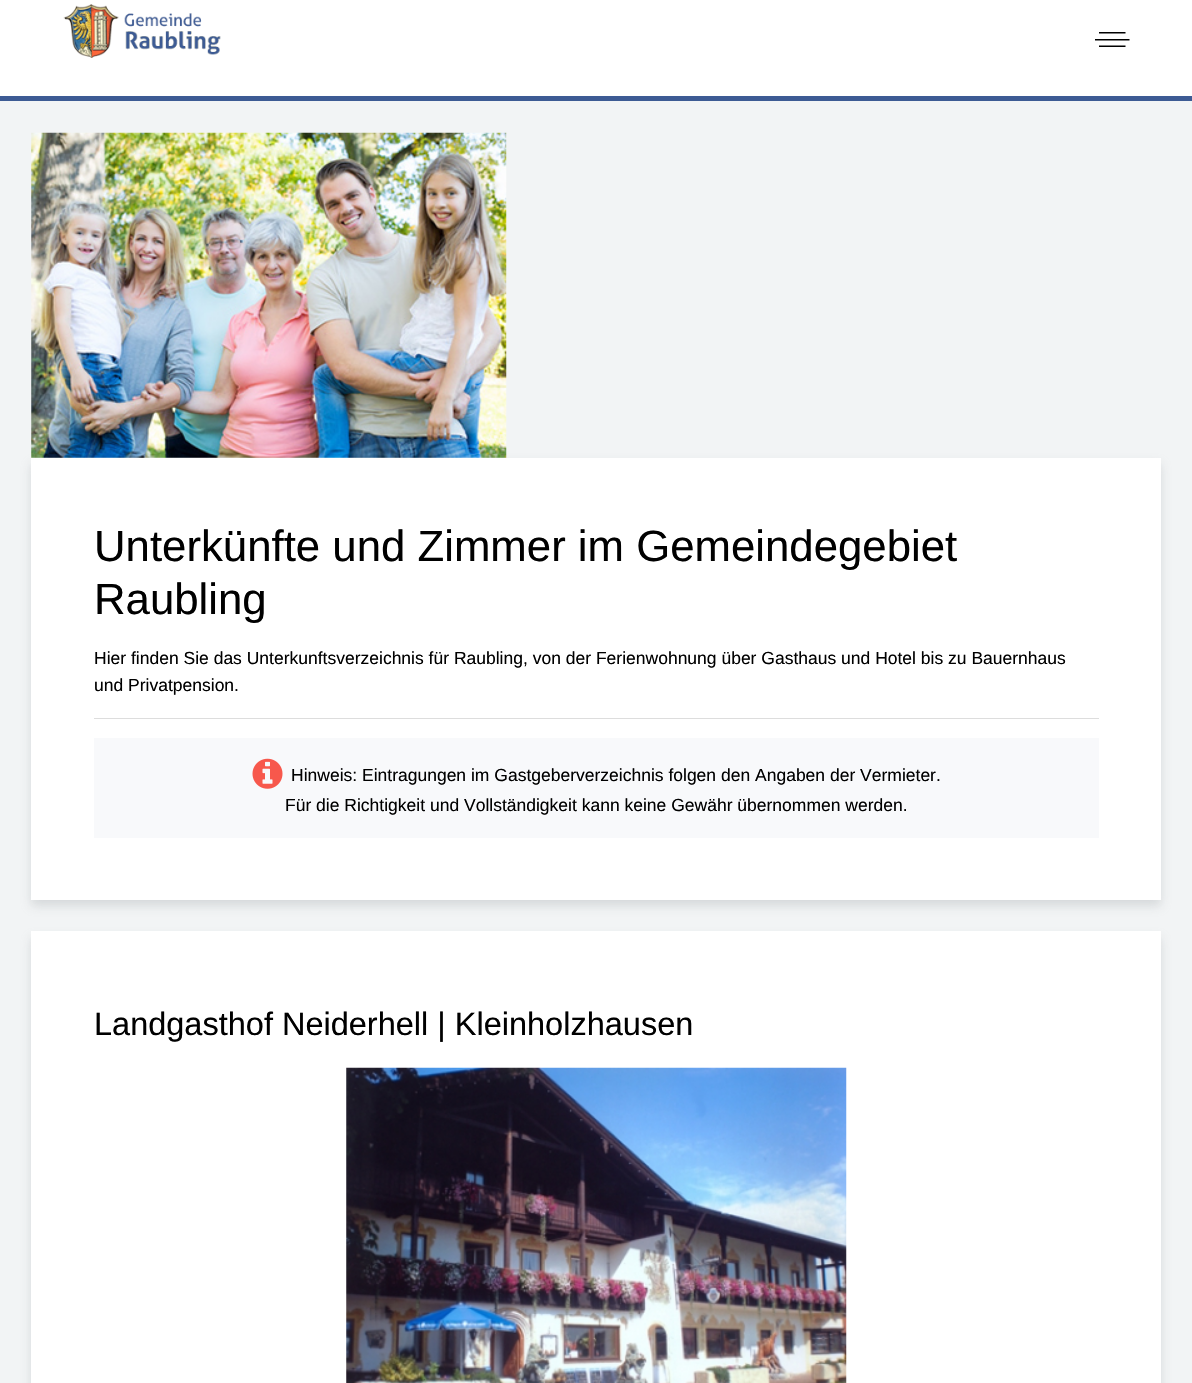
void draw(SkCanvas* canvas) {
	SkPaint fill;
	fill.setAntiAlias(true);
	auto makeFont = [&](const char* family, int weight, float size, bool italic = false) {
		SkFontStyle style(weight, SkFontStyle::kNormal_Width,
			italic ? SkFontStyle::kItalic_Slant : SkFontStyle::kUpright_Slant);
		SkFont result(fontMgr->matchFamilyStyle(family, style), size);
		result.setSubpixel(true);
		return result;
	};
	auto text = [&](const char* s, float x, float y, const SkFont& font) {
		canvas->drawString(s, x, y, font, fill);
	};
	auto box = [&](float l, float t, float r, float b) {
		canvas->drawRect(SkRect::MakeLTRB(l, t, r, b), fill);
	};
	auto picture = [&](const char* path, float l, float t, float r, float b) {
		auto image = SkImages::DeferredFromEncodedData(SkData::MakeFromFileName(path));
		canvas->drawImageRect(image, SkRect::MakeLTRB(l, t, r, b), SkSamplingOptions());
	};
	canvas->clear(0xFFF2F4F5);
	fill.setColor(0xFF3D5B94);
	box(0, 96, 1192, 101);
	fill.setColor(0xFFFFFFFF);
	box(0, 0, 1192, 96);
	picture("image0.png", 63, 4, 221, 58);
	fill.setColor(0xFF000000);
	canvas->drawPath(SkPathBuilder().moveTo(1099, 32).lineTo(1125.5f, 32).lineTo(1125.5f, 33.5f).lineTo(1099, 33.5f).close().moveTo(1099, 45.5f).lineTo(1125.5f, 45.5f).lineTo(1125.5f, 47).lineTo(1099, 47).close().moveTo(1095, 39).lineTo(1129.5f, 39).lineTo(1129.5f, 40.5f).lineTo(1095, 40.5f).close().detach(), fill);
	fill.setColor(0x59A0A6A8);
	fill.setMaskFilter(SkMaskFilter::MakeBlur(kNormal_SkBlurStyle, 5));
	canvas->drawRect(SkRect::MakeLTRB(31, 464, 1161, 906), fill);
	fill.setMaskFilter(nullptr);
	picture("image1.png", 31, 132, 507, 458);
	fill.setColor(0xFFFFFFFF);
	box(31, 458, 1161, 900);
	fill.setColor(0xFFDDDDDD);
	box(94, 718, 1099, 719);
	fill.setColor(0xFFF8F9FB);
	box(94, 738, 1099, 838);
	picture("image2.png", 252, 758, 283, 789);
	fill.setColor(0x59A0A6A8);
	fill.setMaskFilter(SkMaskFilter::MakeBlur(kNormal_SkBlurStyle, 5));
	canvas->drawRect(SkRect::MakeLTRB(31, 938, 1161, 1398), fill);
	fill.setMaskFilter(nullptr);
	fill.setColor(0xFFFFFFFF);
	box(31, 931, 1161, 1383);
	picture("image3.png", 346, 1067, 847, 1383);
	auto font1 = makeFont("Liberation Sans", 400, 43.75f);
	fill.setColor(0xFF000000);
	text("Unterkünfte und Zimmer im Gemeindegebiet", 94, 561, font1);
	text("Raubling", 94, 614, font1);
	auto font2 = makeFont("Liberation Sans", 400, 17.5f);
	text("Hier finden Sie das Unterkunftsverzeichnis für Raubling, von der Ferienwohnung über Gasthaus und Hotel bis zu Bauernhaus", 94, 664, font2);
	text("und Privatpension.", 94, 691, font2);
	text("Hinweis: Eintragungen im Gastgeberverzeichnis folgen den Angaben der Vermieter.", 291, 781, font2);
	text("Für die Richtigkeit und Vollständigkeit kann keine Gewähr übernommen werden.", 285, 811, font2);
	auto font3 = makeFont("Liberation Sans", 400, 32.5f);
	text("Landgasthof Neiderhell | Kleinholzhausen", 94, 1035, font3);
}
